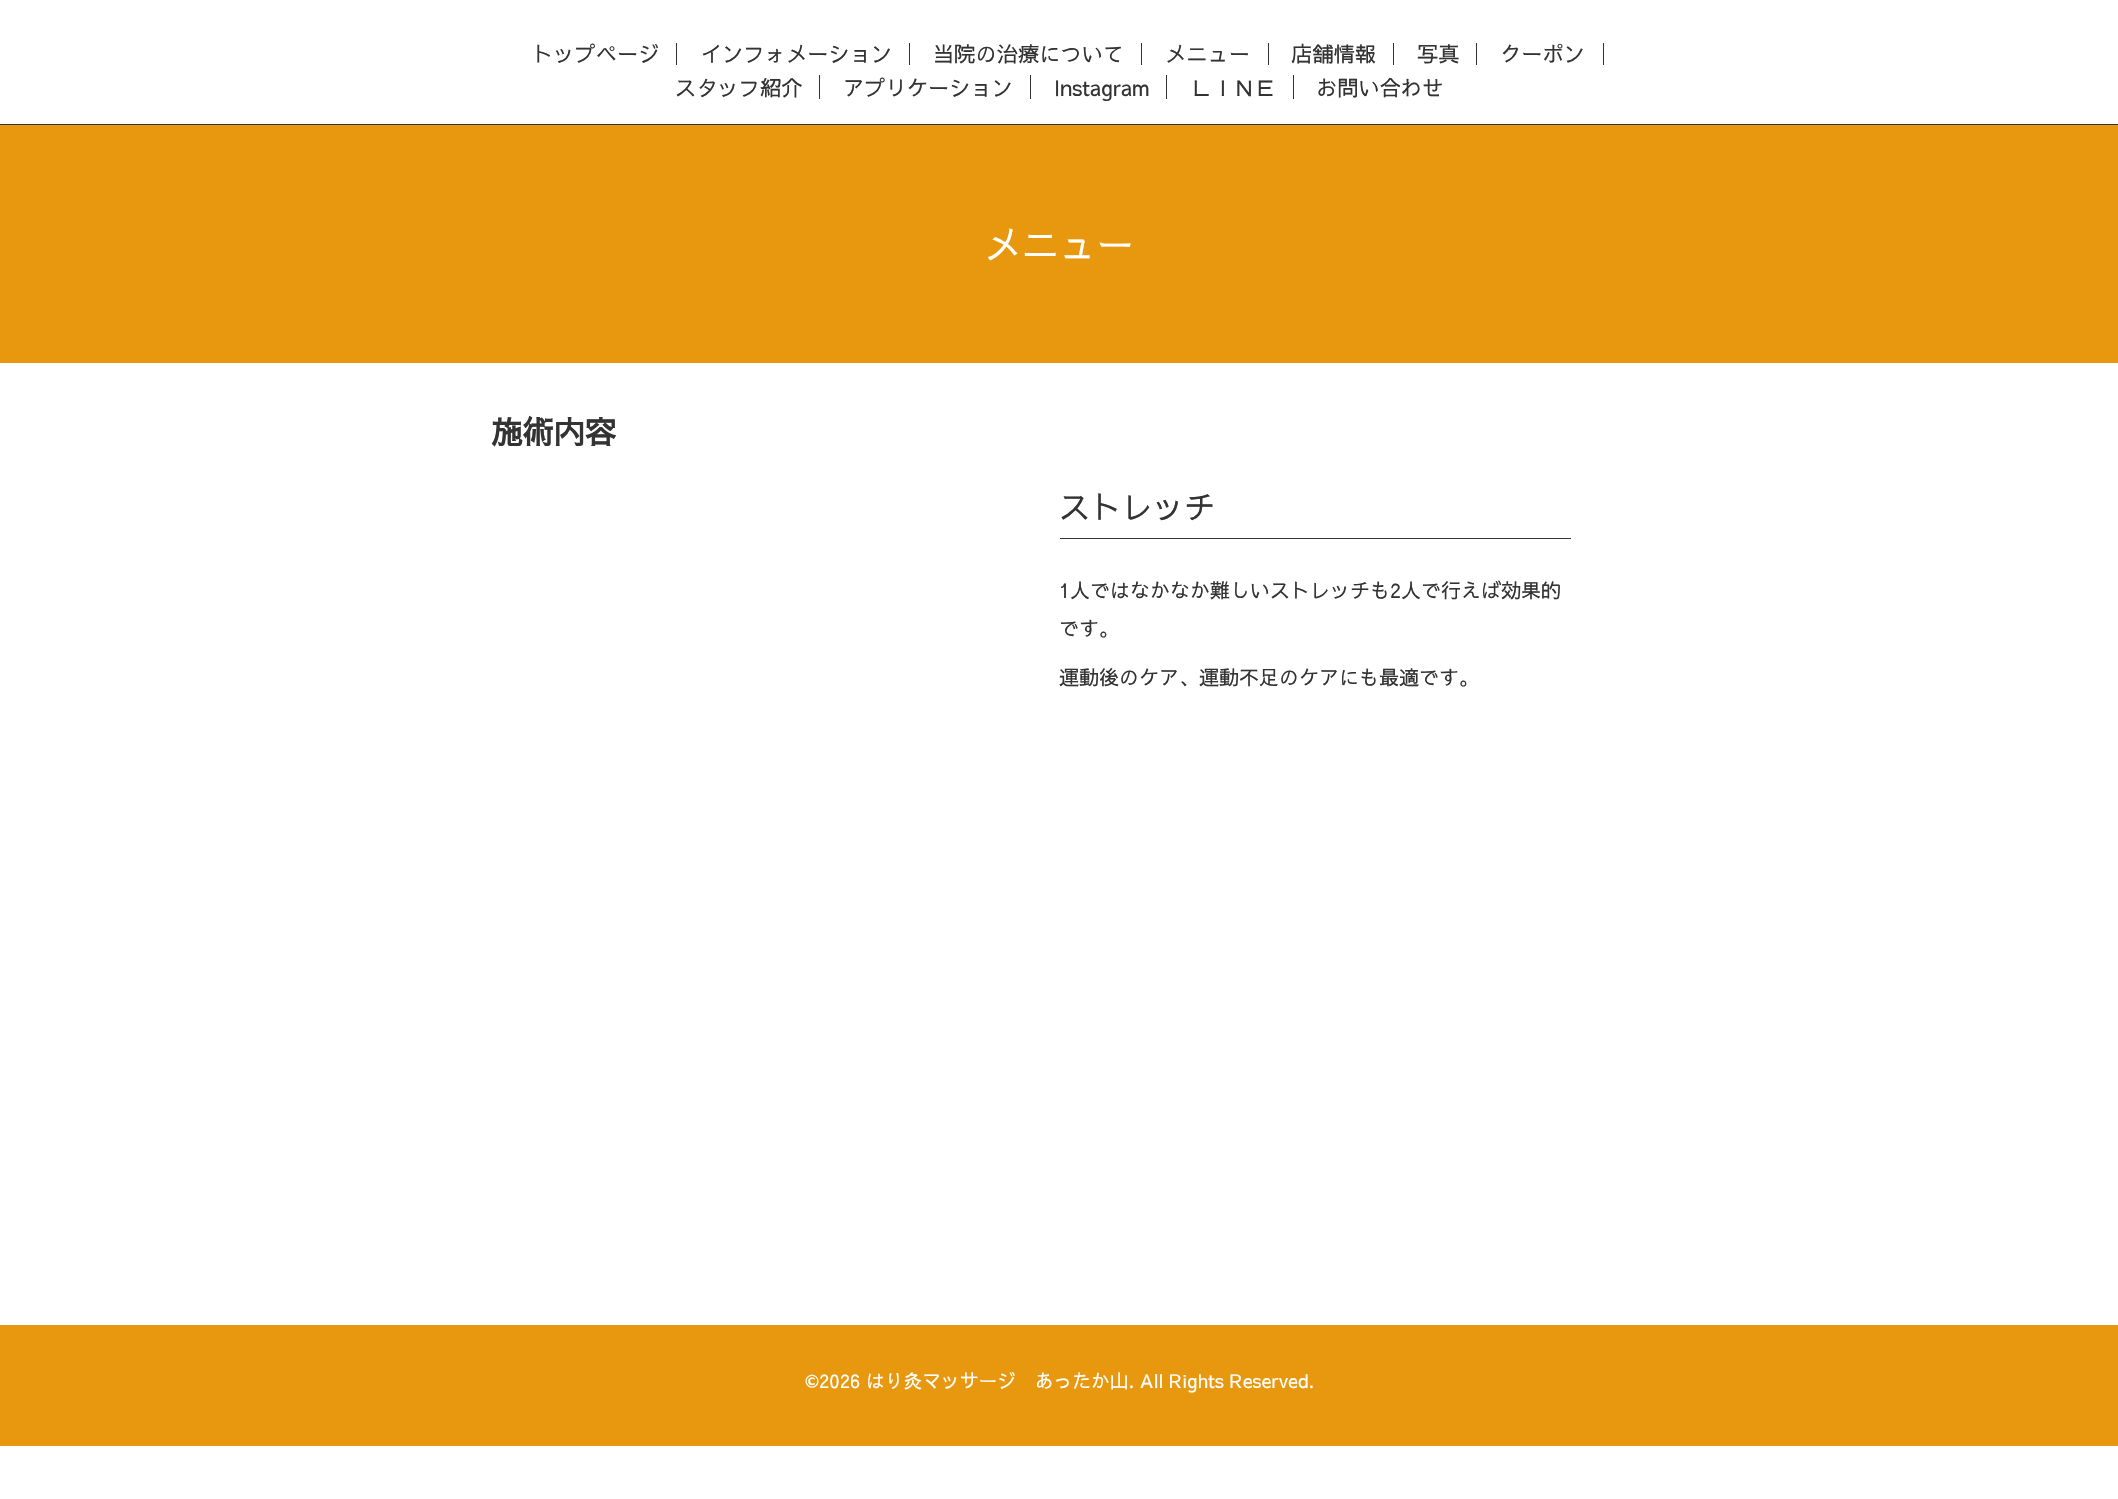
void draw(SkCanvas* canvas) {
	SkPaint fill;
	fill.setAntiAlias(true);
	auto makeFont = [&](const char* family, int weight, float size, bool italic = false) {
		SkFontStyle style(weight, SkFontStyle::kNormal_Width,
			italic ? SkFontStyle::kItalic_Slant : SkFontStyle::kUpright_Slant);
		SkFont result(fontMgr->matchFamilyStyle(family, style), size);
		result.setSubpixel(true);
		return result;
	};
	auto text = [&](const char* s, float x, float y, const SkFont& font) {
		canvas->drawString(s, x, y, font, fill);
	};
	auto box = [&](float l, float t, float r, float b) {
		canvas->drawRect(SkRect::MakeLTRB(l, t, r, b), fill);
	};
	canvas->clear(0xFFFFFFFF);
	fill.setColor(0xFF333333);
	box(0, 124, 2118, 125);
	box(676, 43, 677, 65);
	box(909, 43, 910, 65);
	box(1141, 43, 1142, 65);
	box(1268, 43, 1269, 65);
	box(1393, 43, 1394, 65);
	box(1476, 43, 1477, 65);
	box(1603, 43, 1604, 65);
	box(819, 75, 820, 99);
	box(1030, 75, 1031, 99);
	box(1166, 75, 1167, 99);
	box(1293, 75, 1294, 99);
	fill.setColor(0xFFE7980E);
	box(0, 125, 2118, 363);
	fill.setColor(0xFF333333);
	box(1060, 538, 1571, 539);
	fill.setColor(0xFFE7980E);
	box(0, 1325, 2118, 1446);
	auto font1 = makeFont("Sawarabi Gothic", 400, 21.25f);
	fill.setColor(0xFF333333);
	text("トップページ", 532, 62, font1);
	text("インフォメーション", 701, 62, font1);
	text("当院の治療について", 933, 62, font1);
	text("メニュー", 1165, 62, font1);
	text("店舗情報", 1291, 62, font1);
	text("写真", 1417, 62, font1);
	text("クーポン", 1500, 62, font1);
	text("スタッフ紹介", 675, 96, font1);
	text("アプリケーション", 843, 96, font1);
	text("Instagram", 1054, 96, font1);
	text("ＬＩＮＥ", 1191, 96, font1);
	text("お問い合わせ", 1316, 96, font1);
	auto font2 = makeFont("Sawarabi Gothic", 400, 37.5f);
	fill.setColor(0xFFFFFFFF);
	text("メニュー", 984, 259, font2);
	auto font3 = makeFont("Sawarabi Gothic", 700, 31.25f);
	fill.setColor(0xFF333333);
	text("施術内容", 491, 444, font3);
	auto font4 = makeFont("Sawarabi Gothic", 400, 31.25f);
	text("ストレッチ", 1059, 519, font4);
	auto font5 = makeFont("Sawarabi Gothic", 400, 20);
	text("1人ではなかなか難しいストレッチも2人で行えば効果的", 1059, 598, font5);
	text("です。", 1059, 636, font5);
	text("運動後のケア、運動不足のケアにも最適です。", 1059, 685, font5);
	auto font6 = makeFont("Sawarabi Gothic", 400, 18.75f);
	fill.setColor(0xFFFFFFFF);
	text("©2026 はり灸マッサージ　あったか山. All Rights Reserved.", 805, 1388, font6);
}
